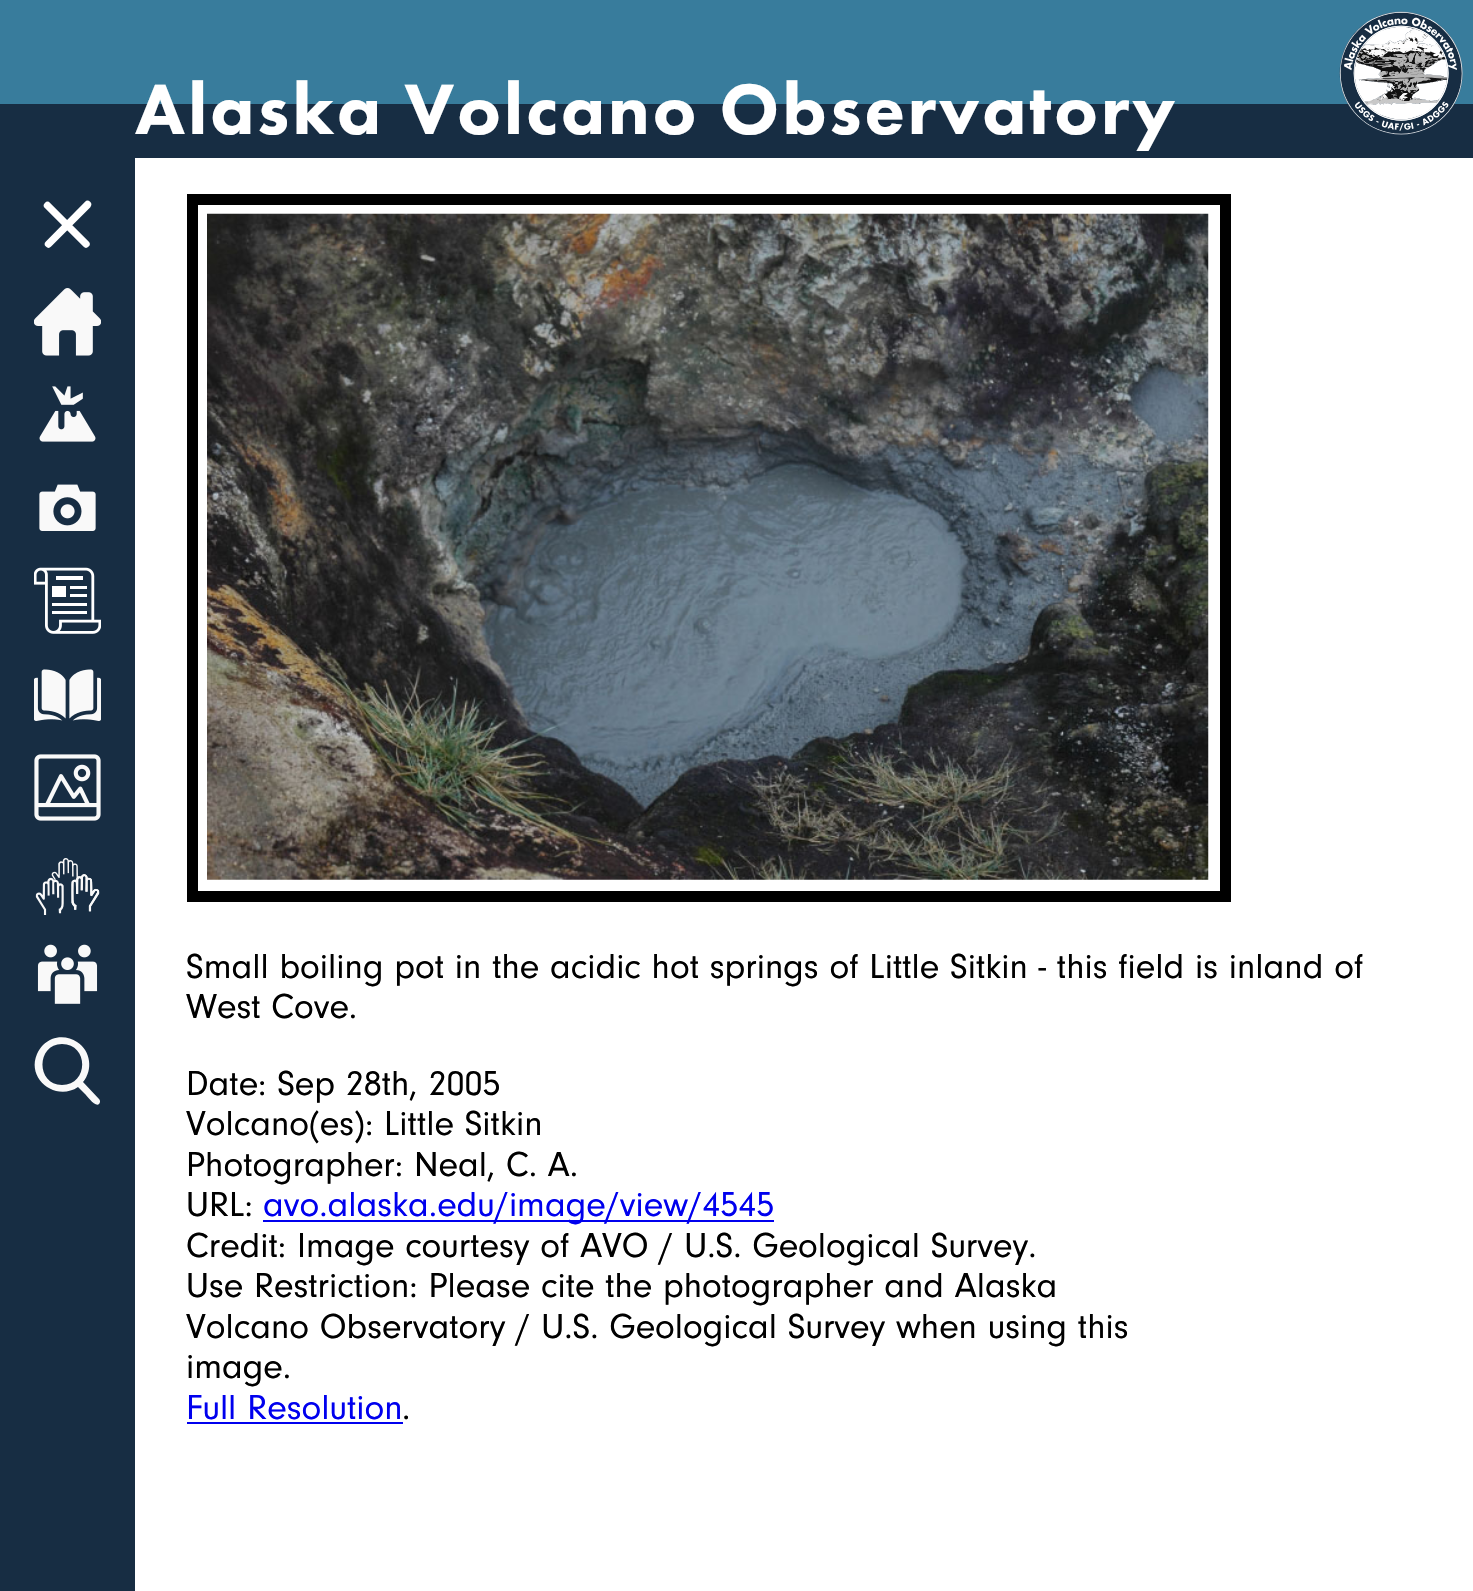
void draw(SkCanvas* canvas) {
	SkPaint fill;
	fill.setAntiAlias(true);
	auto makeFont = [&](const char* family, int weight, float size, bool italic = false) {
		SkFontStyle style(weight, SkFontStyle::kNormal_Width,
			italic ? SkFontStyle::kItalic_Slant : SkFontStyle::kUpright_Slant);
		SkFont result(fontMgr->matchFamilyStyle(family, style), size);
		result.setSubpixel(true);
		return result;
	};
	auto text = [&](const char* s, float x, float y, const SkFont& font) {
		canvas->drawString(s, x, y, font, fill);
	};
	auto spacedText = [&](const char* s, float x, float y, const SkFont& font, const SkPaint& ink, float letter, float word) {
		std::vector<SkGlyphID> glyphs(font.countText(s, strlen(s), SkTextEncoding::kUTF8));
		std::vector<float> xs(glyphs.size());
		font.textToGlyphs(s, strlen(s), SkTextEncoding::kUTF8, glyphs);
		font.getXPos(glyphs, xs, x);
		float extra = 0;
		for (size_t i = 0; i < glyphs.size(); i++) {
			xs[i] += extra;
			extra += letter + word * (glyphs[i] == font.unicharToGlyph(' '));
		}
		canvas->drawTextBlob(SkTextBlob::MakeFromPosHGlyphs(glyphs, xs, y, font), 0, 0, ink);
	};
	auto box = [&](float l, float t, float r, float b) {
		canvas->drawRect(SkRect::MakeLTRB(l, t, r, b), fill);
	};
	auto picture = [&](const char* path, float l, float t, float r, float b) {
		auto image = SkImages::DeferredFromEncodedData(SkData::MakeFromFileName(path));
		canvas->drawImageRect(image, SkRect::MakeLTRB(l, t, r, b), SkSamplingOptions());
	};
	canvas->clear(0xFFFFFFFF);
	fill.setColor(0xFF172D43);
	box(0, 104, 1473, 158);
	fill.setColor(0xFF387C9C);
	box(0, 0, 1473, 104);
	picture("image0.png", 1339, 11, 1463, 135);
	fill.setColor(0xFF172D43);
	box(0, 158, 135, 1591);
	fill.setStyle(SkPaint::kStroke_Style);
	fill.setStrokeWidth(7.4f);
	fill.setStrokeCap(SkPaint::kRound_Cap);
	fill.setColor(0xFFFFFFFF);
	canvas->drawPath(SkPathBuilder().moveTo(87, 205.5f).lineTo(48.5f, 244).moveTo(47.5f, 205.5f).lineTo(86, 244).moveTo(87.5f, 204.5f).lineTo(49.5f, 243).detach(), fill);
	picture("image1.png", 34, 288, 101, 356);
	picture("image2.png", 39, 386, 96, 442);
	picture("image3.png", 39, 484, 96, 531);
	picture("image4.png", 34, 567, 101, 634);
	picture("image5.png", 34, 669, 101, 721);
	picture("image6.png", 34, 754, 101, 821);
	picture("image7.png", 35, 858, 100, 915);
	picture("image8.png", 37, 944, 98, 1004);
	fill.setStyle(SkPaint::kFill_Style);
	fill.setColor(0xFFF9F9F9);
	canvas->drawPath(SkPathBuilder().moveTo(99, 1099).lineTo(83, 1082).cubicTo(93, 1070, 91, 1051, 77, 1042).cubicTo(70, 1037, 60, 1036, 52, 1039).cubicTo(45, 1042, 40, 1047, 37, 1054).cubicTo(26, 1079, 56, 1102, 78, 1087).lineTo(86, 1095).cubicTo(86, 1095, 98, 1111, 100, 1102).cubicTo(100, 1101, 100, 1100, 99, 1099).close().moveTo(62, 1044).cubicTo(89, 1044, 89, 1085, 62, 1085).cubicTo(36, 1085, 36, 1044, 62, 1044).close().detach(), fill);
	fill.setStyle(SkPaint::kStroke_Style);
	fill.setStrokeWidth(11);
	fill.setStrokeCap(SkPaint::kButt_Cap);
	fill.setColor(0xFF000000);
	canvas->drawRect(SkRect::MakeLTRB(192.5f, 199.5f, 1225.5f, 896.5f), fill);
	picture("image9.png", 207, 213, 1209, 880);
	fill.setStyle(SkPaint::kFill_Style);
	fill.setColor(0xFF0000EE);
	box(263, 1220, 774, 1222);
	box(187, 1422, 403, 1424);
	auto font1 = makeFont("Futura PT", 900, 73.75f);
	fill.setColor(0xFFFFFFFF);
	spacedText("Alaska Volcano Observatory", 135, 134, font1, fill, 2.95f, 0);
	auto font2 = makeFont("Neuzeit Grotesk", 400, 36);
	fill.setColor(0xFF000000);
	text("Small boiling pot in the acidic hot springs of Little Sitkin - this field is inland of", 186, 978, font2);
	text("West Cove.", 186, 1018, font2);
	text("Date: Sep 28th, 2005", 186, 1095, font2);
	text("Volcano(es): Little Sitkin", 186, 1135, font2);
	text("Photographer: Neal, C. A.", 186, 1176, font2);
	text("URL:", 186, 1216, font2);
	fill.setColor(0xFF0000EE);
	text("avo.alaska.edu/image/view/4545", 263, 1216, font2);
	fill.setColor(0xFF000000);
	text("Credit: Image courtesy of AVO / U.S. Geological Survey.", 186, 1257, font2);
	text("Use Restriction: Please cite the photographer and Alaska", 186, 1297, font2);
	text("Volcano Observatory / U.S. Geological Survey when using this", 186, 1338, font2);
	text("image.", 186, 1378, font2);
	fill.setColor(0xFF0000EE);
	text("Full Resolution", 186, 1419, font2);
	fill.setColor(0xFF000000);
	text(".", 402, 1419, font2);
}
